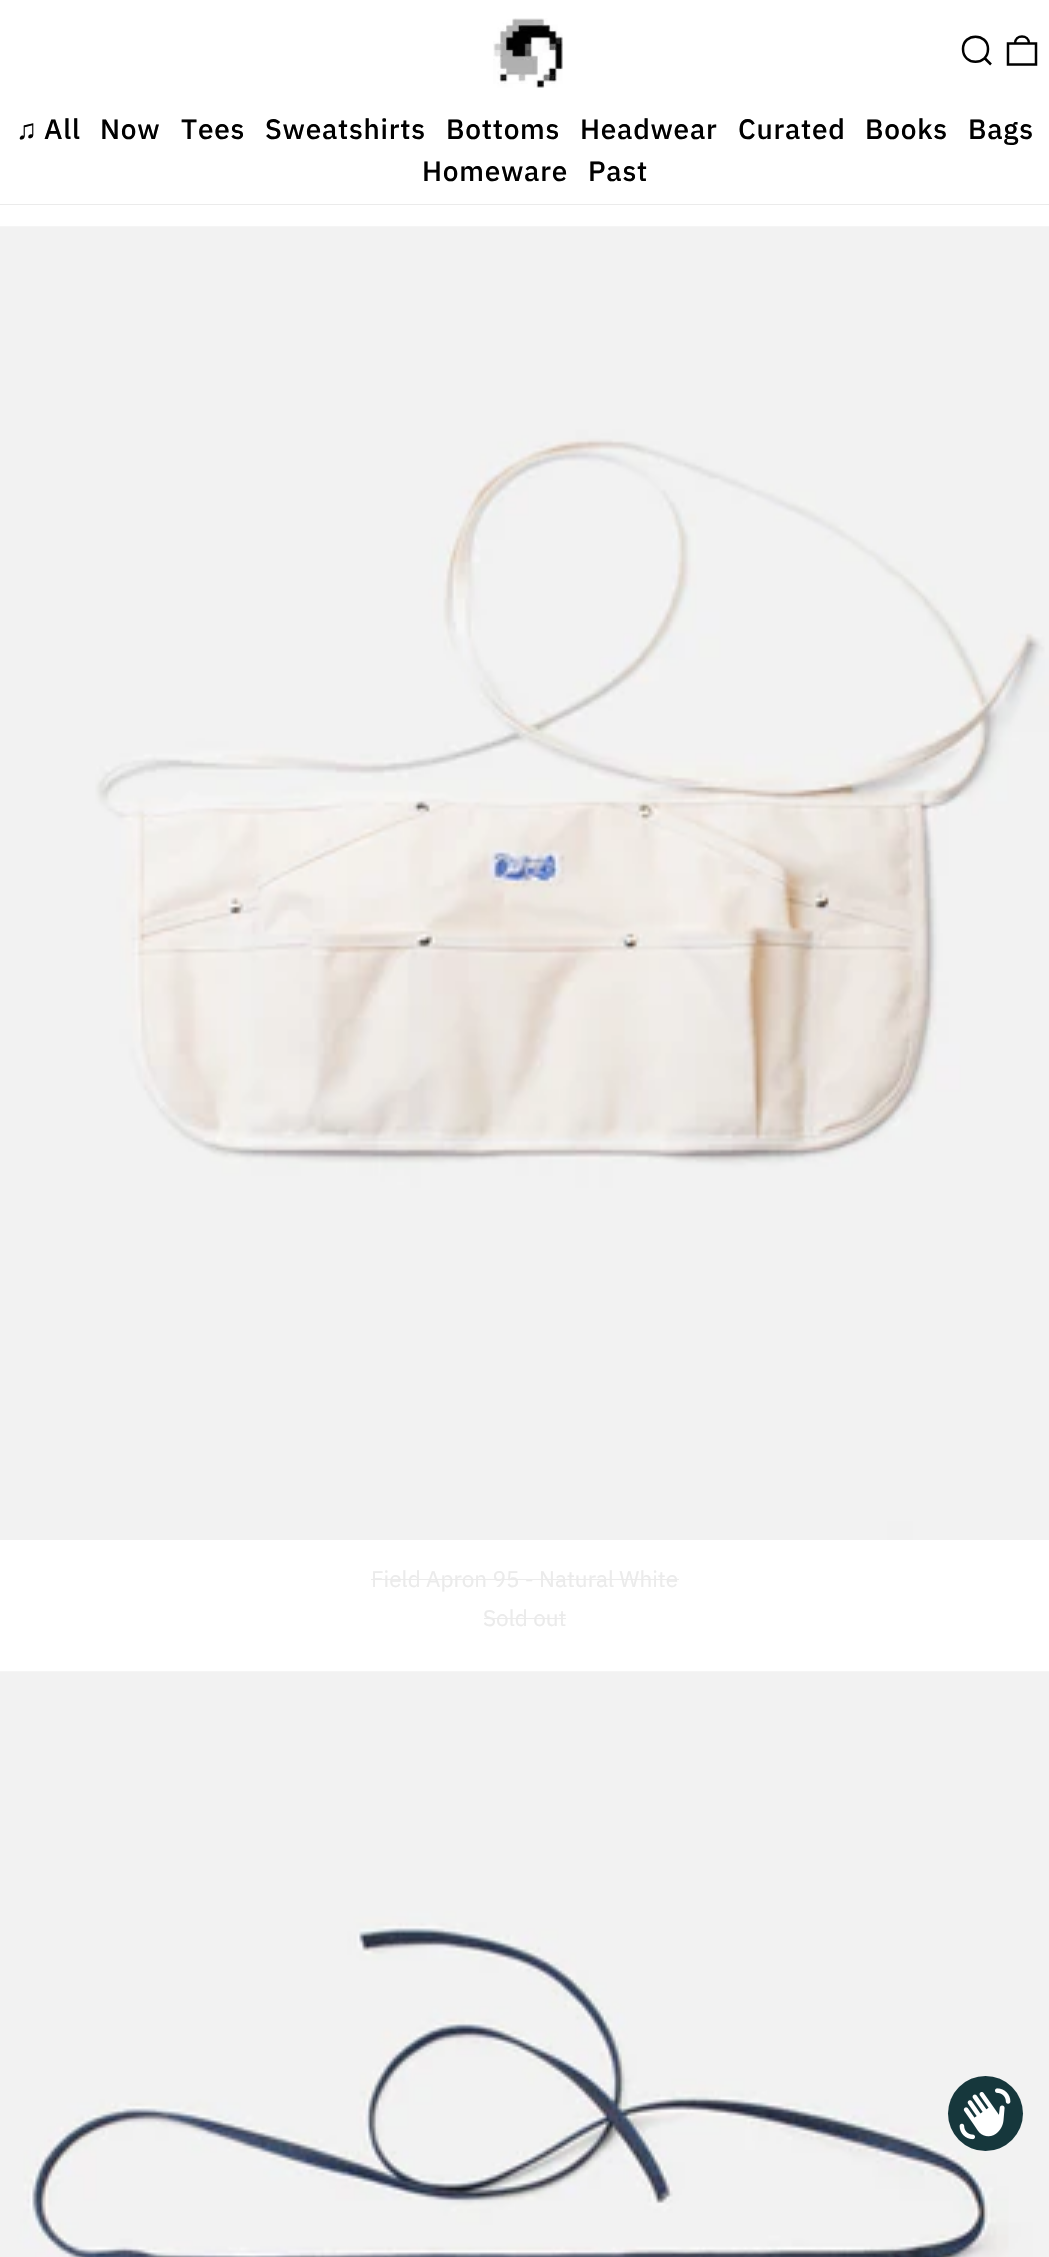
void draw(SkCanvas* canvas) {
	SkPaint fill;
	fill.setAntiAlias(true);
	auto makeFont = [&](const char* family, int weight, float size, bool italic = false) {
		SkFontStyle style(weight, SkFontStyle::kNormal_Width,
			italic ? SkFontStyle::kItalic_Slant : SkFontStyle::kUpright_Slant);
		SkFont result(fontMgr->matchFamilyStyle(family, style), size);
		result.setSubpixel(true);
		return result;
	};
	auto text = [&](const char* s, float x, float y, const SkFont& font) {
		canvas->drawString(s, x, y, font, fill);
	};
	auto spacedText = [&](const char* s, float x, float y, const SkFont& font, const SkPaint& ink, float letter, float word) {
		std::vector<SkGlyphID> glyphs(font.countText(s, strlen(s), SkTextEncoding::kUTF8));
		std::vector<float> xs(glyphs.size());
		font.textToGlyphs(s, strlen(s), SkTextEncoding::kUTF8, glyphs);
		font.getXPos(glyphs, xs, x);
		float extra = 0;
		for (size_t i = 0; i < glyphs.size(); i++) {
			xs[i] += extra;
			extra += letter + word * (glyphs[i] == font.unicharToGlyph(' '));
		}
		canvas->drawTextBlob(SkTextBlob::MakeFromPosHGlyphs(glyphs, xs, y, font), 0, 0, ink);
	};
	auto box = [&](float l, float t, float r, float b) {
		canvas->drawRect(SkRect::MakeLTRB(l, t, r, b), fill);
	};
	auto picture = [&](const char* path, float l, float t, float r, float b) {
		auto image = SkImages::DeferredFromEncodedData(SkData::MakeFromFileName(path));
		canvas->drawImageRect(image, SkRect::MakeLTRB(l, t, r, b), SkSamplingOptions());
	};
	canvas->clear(0xFFFFFFFF);
	picture("image0.png", 493, 18, 563, 88);
	fill.setStyle(SkPaint::kStroke_Style);
	fill.setStrokeWidth(2.5f);
	fill.setColor(0xFF000000);
	canvas->drawPath(SkPathBuilder().moveTo(963, 49).cubicTo(963, 66, 988, 66, 988, 49).cubicTo(988, 32.5f, 963, 32.5f, 963, 49).close().moveTo(984.5f, 58).lineTo(991, 64.5f).detach(), fill);
	canvas->drawPath(SkPathBuilder().moveTo(1008, 43.5f).lineTo(1036, 43.5f).lineTo(1036, 64.5f).lineTo(1008, 64.5f).close().moveTo(1029, 43.5f).cubicTo(1029, 34, 1015, 34, 1015, 43.5f).detach(), fill);
	fill.setStyle(SkPaint::kFill_Style);
	fill.setColor(0xFFEBEBEB);
	box(0, 204, 1049, 205);
	picture("image1.png", 0, 226, 1049, 1540);
	box(371, 1579, 679, 1580);
	box(484, 1618, 566, 1619);
	picture("image2.png", 0, 1671, 1049, 2257);
	fill.setColor(0xFF16373C);
	canvas->drawCircle(985.5f, 2113.5f, 37.5f, fill);
	picture("image3.png", 959, 2088, 1011, 2140);
	auto font1 = makeFont("Liberation Sans", 400, 28);
	fill.setColor(0xFF000000);
	text("♫", 16, 139, font1);
	auto font2 = makeFont("IBM Plex Sans", 500, 28);
	spacedText("All", 44, 139, font2, fill, 0.75f, 0);
	spacedText("Now", 100, 139, font2, fill, 0.75f, 0);
	spacedText("Tees", 181, 139, font2, fill, 0.75f, 0);
	spacedText("Sweatshirts", 265, 139, font2, fill, 0.75f, 0);
	spacedText("Bottoms", 446, 139, font2, fill, 0.75f, 0);
	spacedText("Headwear", 580, 139, font2, fill, 0.75f, 0);
	spacedText("Curated", 738, 139, font2, fill, 0.75f, 0);
	spacedText("Books", 865, 139, font2, fill, 0.75f, 0);
	spacedText("Bags", 968, 139, font2, fill, 0.75f, 0);
	spacedText("Homeware", 422, 181, font2, fill, 0.75f, 0);
	spacedText("Past", 588, 181, font2, fill, 0.75f, 0);
	auto font3 = makeFont("IBM Plex Sans", 400, 22.5f);
	fill.setColor(0xFFEBEBEB);
	text("Field Apron 95 - Natural White", 371, 1587, font3);
	text("Sold out", 483, 1626, font3);
}
